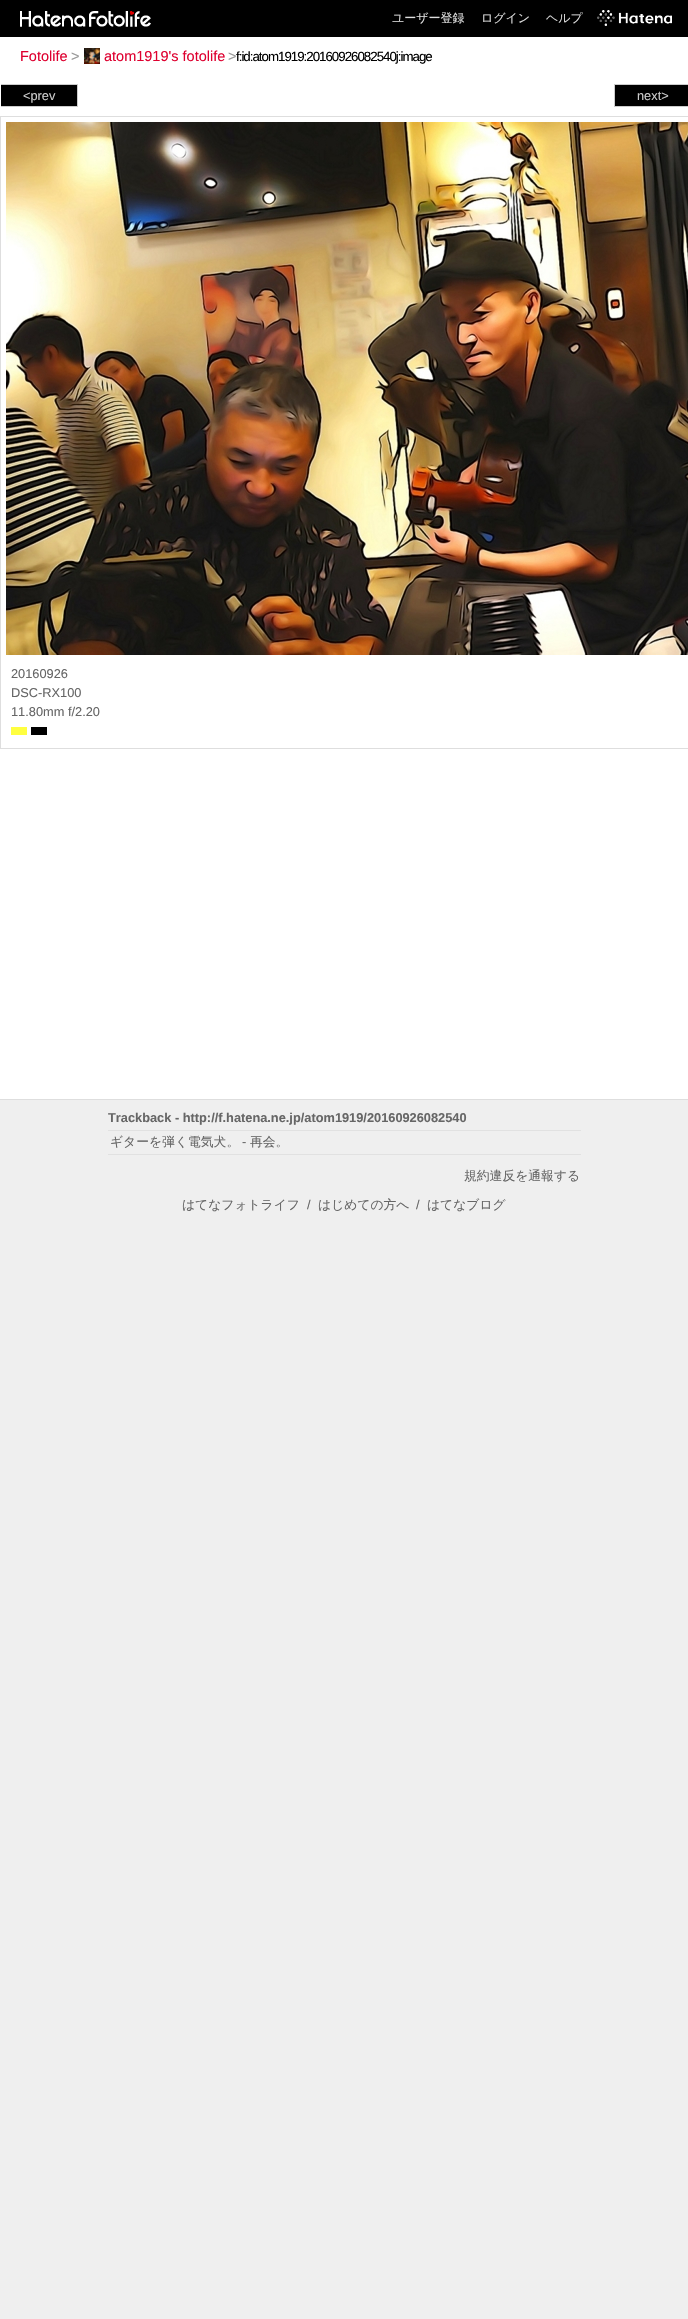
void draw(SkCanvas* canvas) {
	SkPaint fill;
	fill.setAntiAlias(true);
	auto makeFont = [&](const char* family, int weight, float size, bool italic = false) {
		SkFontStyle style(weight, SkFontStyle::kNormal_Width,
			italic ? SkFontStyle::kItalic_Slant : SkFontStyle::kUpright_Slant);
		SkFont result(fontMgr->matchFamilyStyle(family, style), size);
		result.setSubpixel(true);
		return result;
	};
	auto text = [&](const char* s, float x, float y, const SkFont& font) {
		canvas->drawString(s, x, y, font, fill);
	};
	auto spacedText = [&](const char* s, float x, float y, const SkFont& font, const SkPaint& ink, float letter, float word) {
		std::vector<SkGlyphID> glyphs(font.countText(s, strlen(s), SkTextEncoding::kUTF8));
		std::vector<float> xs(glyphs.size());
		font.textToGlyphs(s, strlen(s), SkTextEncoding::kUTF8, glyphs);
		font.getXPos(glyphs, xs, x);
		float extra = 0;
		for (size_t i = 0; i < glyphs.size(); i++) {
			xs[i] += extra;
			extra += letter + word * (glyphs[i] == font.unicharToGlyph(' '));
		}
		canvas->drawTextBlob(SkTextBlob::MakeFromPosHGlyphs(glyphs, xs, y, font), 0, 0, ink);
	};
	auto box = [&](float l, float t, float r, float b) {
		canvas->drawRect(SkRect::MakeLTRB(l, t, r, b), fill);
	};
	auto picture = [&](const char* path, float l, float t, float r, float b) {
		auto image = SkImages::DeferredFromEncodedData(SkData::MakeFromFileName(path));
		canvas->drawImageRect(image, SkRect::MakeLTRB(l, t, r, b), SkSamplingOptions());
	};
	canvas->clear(0xFFEFEFEF);
	fill.setColor(0xFF000000);
	box(0, 0, 688, 37);
	picture("image0.png", 20, 11, 86, 27);
	picture("image1.png", 89, 11, 151, 27);
	picture("image2.png", 597, 10, 672, 26);
	fill.setColor(0xFFFFFFFF);
	box(0, 37, 688, 1099);
	picture("image3.png", 84, 48, 100, 64);
	fill.setColor(0xFFDEDEDE);
	box(0, 1099, 688, 1100);
	fill.setColor(0xFF000000);
	box(1, 85, 77, 106);
	fill.setColor(0xFFCCCCCC);
	box(1, 84, 78, 85);
	box(77, 84, 78, 107);
	box(1, 106, 78, 107);
	fill.setColor(0xFF000000);
	box(615, 85, 688, 106);
	fill.setColor(0xFFCCCCCC);
	box(614, 84, 688, 85);
	box(614, 106, 688, 107);
	box(614, 84, 615, 107);
	fill.setStyle(SkPaint::kStroke_Style);
	fill.setStrokeWidth(1);
	fill.setColor(0xFFDEDEDE);
	canvas->drawRect(SkRect::MakeLTRB(0.5f, 116.5f, 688.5f, 748.5f), fill);
	picture("image4.png", 6, 122, 688, 655);
	fill.setStyle(SkPaint::kFill_Style);
	fill.setColor(0xFFFFFF40);
	box(11, 727, 27, 735);
	fill.setColor(0xFF000000);
	box(31, 727, 47, 735);
	fill.setColor(0xFFE1E1E1);
	box(108, 1130, 581, 1131);
	box(108, 1154, 581, 1155);
	auto font1 = makeFont("WenQuanYi Zen Hei", 500, 12);
	fill.setColor(0xFFDDDDDD);
	text("ユーザー登録", 392, 22, font1);
	text("ログイン", 481, 22, font1);
	text("ヘルプ", 546, 22, font1);
	auto font2 = makeFont("Liberation Sans", 400, 14.5f);
	fill.setColor(0xFFDE002F);
	text("Fotolife", 20, 61, font2);
	fill.setColor(0xFF999999);
	text(">", 71, 61, font2);
	fill.setColor(0xFFDE002F);
	text("atom1919's fotolife", 104, 61, font2);
	fill.setColor(0xFF999999);
	text(">", 228, 61, font2);
	auto font3 = makeFont("Liberation Sans", 400, 13.3f);
	fill.setColor(0xFF000000);
	spacedText("f:id:atom1919:20160926082540j:image", 236, 61, font3, fill, -1, 0);
	auto font4 = makeFont("Liberation Sans", 400, 12.8f);
	fill.setColor(0xFFCCCCCC);
	text("<prev", 23, 100, font4);
	text("next>", 637, 100, font4);
	fill.setColor(0xFF666666);
	text("20160926", 11, 678, font4);
	text("DSC-RX100", 11, 697, font4);
	text("11.80mm f/2.20", 11, 716, font4);
	auto font5 = makeFont("Liberation Sans", 700, 12.8f);
	text("Trackback - http://f.hatena.ne.jp/atom1919/20160926082540", 108, 1122, font5);
	auto font6 = makeFont("WenQuanYi Zen Hei", 500, 12.8f);
	text("ギターを弾く電気犬。", 110, 1146, font6);
	text("-", 242, 1146, font4);
	text("再会。", 250, 1146, font6);
	text("規約違反を通報する", 464, 1180, font6);
	text("はてなフォトライフ", 182, 1209, font6);
	text("/", 307, 1209, font4);
	text("はじめての方へ", 318, 1209, font6);
	text("/", 416, 1209, font4);
	text("はてなブログ", 427, 1209, font6);
}
